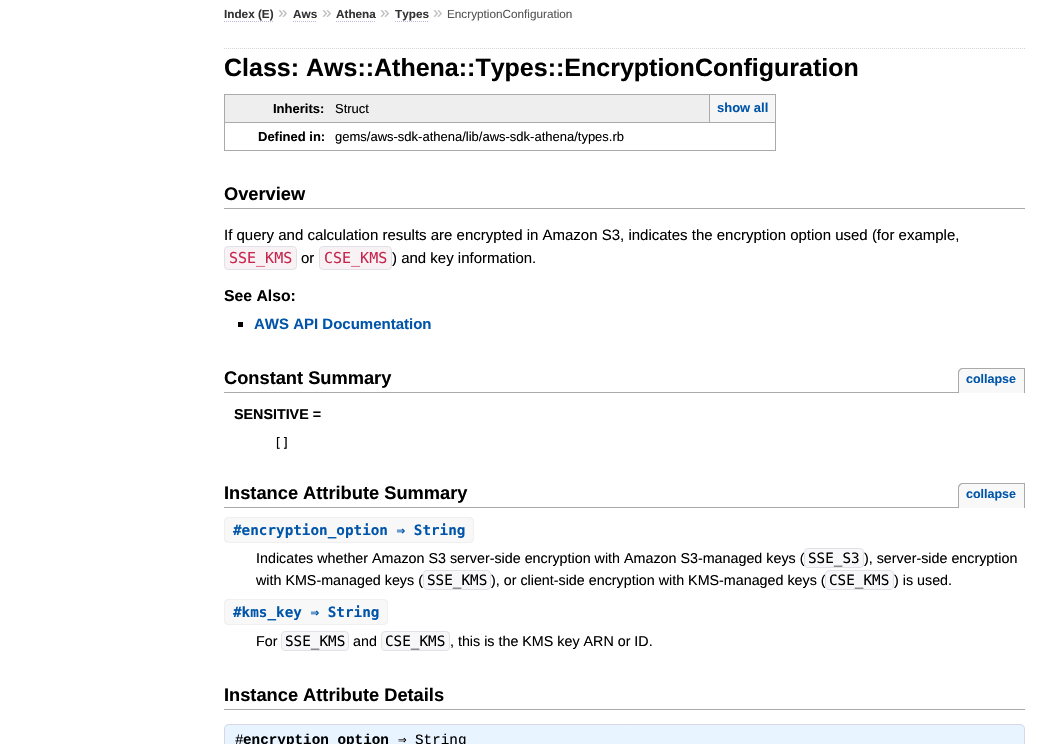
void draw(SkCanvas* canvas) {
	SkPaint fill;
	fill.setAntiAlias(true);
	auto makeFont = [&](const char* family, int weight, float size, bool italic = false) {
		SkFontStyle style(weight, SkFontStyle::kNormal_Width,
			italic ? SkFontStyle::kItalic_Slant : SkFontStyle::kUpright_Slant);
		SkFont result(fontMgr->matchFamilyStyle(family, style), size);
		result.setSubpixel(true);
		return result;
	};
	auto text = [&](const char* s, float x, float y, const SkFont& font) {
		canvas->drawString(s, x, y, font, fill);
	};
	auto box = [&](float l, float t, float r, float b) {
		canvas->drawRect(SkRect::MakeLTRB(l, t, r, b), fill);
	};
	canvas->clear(0xFFFFFFFF);
	fill.setStyle(SkPaint::kStroke_Style);
	fill.setStrokeWidth(1);
	fill.setColor(0xFFBBBBDD);
	fill.setPathEffect(SkDashPathEffect::Make({{1, 1}}, 0));
	canvas->drawPath(SkPathBuilder().moveTo(224, 21.5f).lineTo(274, 21.5f).detach(), fill);
	fill.setPathEffect(nullptr);
	fill.setPathEffect(SkDashPathEffect::Make({{1, 1}}, 0));
	canvas->drawPath(SkPathBuilder().moveTo(293, 21.5f).lineTo(317, 21.5f).detach(), fill);
	fill.setPathEffect(nullptr);
	fill.setPathEffect(SkDashPathEffect::Make({{1, 1}}, 0));
	canvas->drawPath(SkPathBuilder().moveTo(336, 21.5f).lineTo(376, 21.5f).detach(), fill);
	fill.setPathEffect(nullptr);
	fill.setPathEffect(SkDashPathEffect::Make({{1, 1}}, 0));
	canvas->drawPath(SkPathBuilder().moveTo(395, 21.5f).lineTo(429, 21.5f).detach(), fill);
	fill.setPathEffect(nullptr);
	fill.setColor(0xFFD5D5D5);
	fill.setPathEffect(SkDashPathEffect::Make({{1, 1}}, 0));
	canvas->drawPath(SkPathBuilder().moveTo(224, 48.5f).lineTo(1025, 48.5f).detach(), fill);
	fill.setPathEffect(nullptr);
	fill.setStyle(SkPaint::kFill_Style);
	fill.setColor(0xFFEEEEEE);
	box(225, 95, 709, 122);
	fill.setColor(0xFFAAAAAA);
	box(224, 94, 776, 95);
	box(224, 94, 225, 122);
	box(224, 122, 776, 123);
	box(775, 94, 776, 151);
	fill.setColor(0xFFF6F6F6);
	box(710, 95, 775, 122);
	fill.setColor(0xFFAAAAAA);
	box(709, 95, 710, 122);
	box(224, 150, 335, 151);
	box(224, 122, 225, 151);
	box(335, 150, 776, 151);
	box(224, 208, 1025, 209);
	fill.setColor(0xFFF9F2F4);
	canvas->drawRoundRect(SkRect::MakeLTRB(224.5f, 246.5f, 296.5f, 269.5f), 3.5f, 3.5f, fill);
	fill.setStyle(SkPaint::kStroke_Style);
	fill.setColor(0xFFE1E1E8);
	canvas->drawRoundRect(SkRect::MakeLTRB(224.5f, 246.5f, 296.5f, 269.5f), 3.5f, 3.5f, fill);
	fill.setStyle(SkPaint::kFill_Style);
	fill.setColor(0xFFF9F2F4);
	canvas->drawRoundRect(SkRect::MakeLTRB(319.5f, 246.5f, 391.5f, 269.5f), 3.5f, 3.5f, fill);
	fill.setStyle(SkPaint::kStroke_Style);
	fill.setColor(0xFFE1E1E8);
	canvas->drawRoundRect(SkRect::MakeLTRB(319.5f, 246.5f, 391.5f, 269.5f), 3.5f, 3.5f, fill);
	fill.setStyle(SkPaint::kFill_Style);
	fill.setColor(0xFF000000);
	box(238, 322, 243, 327);
	fill.setColor(0xFFAAAAAA);
	box(224, 392, 958, 393);
	fill.setColor(0xFFF8F8F8);
	canvas->drawPath(SkPathBuilder().moveTo(963, 368).lineTo(1025, 368).lineTo(1025, 393).lineTo(958, 393).lineTo(958, 373).cubicTo(958, 370, 960, 368, 963, 368).close().detach(), fill);
	fill.setColor(0xFFAAAAAA);
	canvas->drawPath(SkPathBuilder(SkPathFillType::kEvenOdd).moveTo(963, 368).lineTo(1025, 368).lineTo(1025, 393).lineTo(958, 393).lineTo(958, 373).cubicTo(958, 370, 960, 368, 963, 368).close().moveTo(963, 369).lineTo(1024, 369).lineTo(1024, 393).lineTo(959, 393).lineTo(959, 373).cubicTo(959, 371, 961, 369, 963, 369).close().detach(), fill);
	box(224, 507, 958, 508);
	fill.setColor(0xFFF8F8F8);
	canvas->drawPath(SkPathBuilder().moveTo(963, 483).lineTo(1025, 483).lineTo(1025, 508).lineTo(958, 508).lineTo(958, 488).cubicTo(958, 485, 960, 483, 963, 483).close().detach(), fill);
	fill.setColor(0xFFAAAAAA);
	canvas->drawPath(SkPathBuilder(SkPathFillType::kEvenOdd).moveTo(963, 483).lineTo(1025, 483).lineTo(1025, 508).lineTo(958, 508).lineTo(958, 488).cubicTo(958, 485, 960, 483, 963, 483).close().moveTo(963, 484).lineTo(1024, 484).lineTo(1024, 508).lineTo(959, 508).lineTo(959, 488).cubicTo(959, 486, 961, 484, 963, 484).close().detach(), fill);
	fill.setColor(0xFFF8F8F8);
	canvas->drawPath(SkPathBuilder().moveTo(229, 517).lineTo(241, 517).lineTo(241, 543).lineTo(229, 543).cubicTo(226, 543, 224, 541, 224, 538).lineTo(224, 522).cubicTo(224, 519, 226, 517, 229, 517).close().detach(), fill);
	fill.setColor(0xFFF0F0F0);
	canvas->drawPath(SkPathBuilder(SkPathFillType::kEvenOdd).moveTo(229, 517).lineTo(241, 517).lineTo(241, 543).lineTo(229, 543).cubicTo(226, 543, 224, 541, 224, 538).lineTo(224, 522).cubicTo(224, 519, 226, 517, 229, 517).close().moveTo(229, 518).lineTo(241, 518).lineTo(241, 542).lineTo(229, 542).cubicTo(227, 542, 225, 540, 225, 538).lineTo(225, 522).cubicTo(225, 520, 227, 518, 229, 518).close().detach(), fill);
	fill.setColor(0xFFF8F8F8);
	box(241, 518, 388, 542);
	fill.setColor(0xFFF0F0F0);
	box(241, 517, 388, 518);
	box(241, 542, 388, 543);
	fill.setColor(0xFFF8F8F8);
	canvas->drawPath(SkPathBuilder().moveTo(388, 517).lineTo(469, 517).cubicTo(472, 517, 474, 519, 474, 522).lineTo(474, 538).cubicTo(474, 541, 472, 543, 469, 543).lineTo(388, 543).close().detach(), fill);
	fill.setColor(0xFFF0F0F0);
	canvas->drawPath(SkPathBuilder(SkPathFillType::kEvenOdd).moveTo(388, 517).lineTo(469, 517).cubicTo(472, 517, 474, 519, 474, 522).lineTo(474, 538).cubicTo(474, 541, 472, 543, 469, 543).lineTo(388, 543).close().moveTo(388, 518).lineTo(469, 518).cubicTo(471, 518, 473, 520, 473, 522).lineTo(473, 538).cubicTo(473, 540, 471, 542, 469, 542).lineTo(388, 542).close().detach(), fill);
	fill.setColor(0xFFF7F7F9);
	canvas->drawRoundRect(SkRect::MakeLTRB(423.5f, 570.5f, 490.5f, 589.5f), 3.5f, 3.5f, fill);
	fill.setStyle(SkPaint::kStroke_Style);
	fill.setColor(0xFFE1E1E8);
	canvas->drawRoundRect(SkRect::MakeLTRB(423.5f, 570.5f, 490.5f, 589.5f), 3.5f, 3.5f, fill);
	fill.setStyle(SkPaint::kFill_Style);
	fill.setColor(0xFFF8F8F8);
	canvas->drawPath(SkPathBuilder().moveTo(229, 599).lineTo(241, 599).lineTo(241, 625).lineTo(229, 625).cubicTo(226, 625, 224, 623, 224, 620).lineTo(224, 604).cubicTo(224, 601, 226, 599, 229, 599).close().detach(), fill);
	fill.setColor(0xFFF0F0F0);
	canvas->drawPath(SkPathBuilder(SkPathFillType::kEvenOdd).moveTo(229, 599).lineTo(241, 599).lineTo(241, 625).lineTo(229, 625).cubicTo(226, 625, 224, 623, 224, 620).lineTo(224, 604).cubicTo(224, 601, 226, 599, 229, 599).close().moveTo(229, 600).lineTo(241, 600).lineTo(241, 624).lineTo(229, 624).cubicTo(227, 624, 225, 622, 225, 620).lineTo(225, 604).cubicTo(225, 602, 227, 600, 229, 600).close().detach(), fill);
	fill.setColor(0xFFF8F8F8);
	box(241, 600, 302, 624);
	fill.setColor(0xFFF0F0F0);
	box(241, 599, 302, 600);
	box(241, 624, 302, 625);
	fill.setColor(0xFFF8F8F8);
	canvas->drawPath(SkPathBuilder().moveTo(302, 599).lineTo(383, 599).cubicTo(386, 599, 388, 601, 388, 604).lineTo(388, 620).cubicTo(388, 623, 386, 625, 383, 625).lineTo(302, 625).close().detach(), fill);
	fill.setColor(0xFFF0F0F0);
	canvas->drawPath(SkPathBuilder(SkPathFillType::kEvenOdd).moveTo(302, 599).lineTo(383, 599).cubicTo(386, 599, 388, 601, 388, 604).lineTo(388, 620).cubicTo(388, 623, 386, 625, 383, 625).lineTo(302, 625).close().moveTo(302, 600).lineTo(383, 600).cubicTo(385, 600, 387, 602, 387, 604).lineTo(387, 620).cubicTo(387, 622, 385, 624, 383, 624).lineTo(302, 624).close().detach(), fill);
	fill.setColor(0xFFF7F7F9);
	canvas->drawRoundRect(SkRect::MakeLTRB(281.5f, 631.5f, 348.5f, 650.5f), 3.5f, 3.5f, fill);
	fill.setStyle(SkPaint::kStroke_Style);
	fill.setColor(0xFFE1E1E8);
	canvas->drawRoundRect(SkRect::MakeLTRB(281.5f, 631.5f, 348.5f, 650.5f), 3.5f, 3.5f, fill);
	fill.setStyle(SkPaint::kFill_Style);
	fill.setColor(0xFFF7F7F9);
	canvas->drawRoundRect(SkRect::MakeLTRB(381.5f, 631.5f, 449.5f, 650.5f), 3.5f, 3.5f, fill);
	fill.setStyle(SkPaint::kStroke_Style);
	fill.setColor(0xFFE1E1E8);
	canvas->drawRoundRect(SkRect::MakeLTRB(381.5f, 631.5f, 449.5f, 650.5f), 3.5f, 3.5f, fill);
	fill.setStyle(SkPaint::kFill_Style);
	fill.setColor(0xFFAAAAAA);
	box(224, 709, 1025, 710);
	fill.setColor(0xFFE8F4FF);
	canvas->drawPath(SkPathBuilder().moveTo(229, 724).lineTo(1020, 724).cubicTo(1023, 724, 1025, 726, 1025, 729).lineTo(1025, 744).lineTo(224, 744).lineTo(224, 729).cubicTo(224, 726, 226, 724, 229, 724).close().detach(), fill);
	fill.setStyle(SkPaint::kStroke_Style);
	fill.setColor(0xFFD8D8E5);
	canvas->drawRoundRect(SkRect::MakeLTRB(224.5f, 724.5f, 1024.5f, 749.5f), 4.5f, 4.5f, fill);
	auto font1 = makeFont("Liberation Sans", 700, 11.75f);
	fill.setStyle(SkPaint::kFill_Style);
	fill.setColor(0xFF333333);
	text("Index (E)", 224, 18, font1);
	auto font2 = makeFont("Liberation Sans", 400, 17);
	fill.setColor(0xFFBBBBBB);
	text("»", 278, 18, font2);
	fill.setColor(0xFF333333);
	text("Aws", 293, 18, font1);
	fill.setColor(0xFFBBBBBB);
	text("»", 322, 18, font2);
	fill.setColor(0xFF333333);
	text("Athena", 336, 18, font1);
	fill.setColor(0xFFBBBBBB);
	text("»", 380, 18, font2);
	fill.setColor(0xFF333333);
	text("Types", 395, 18, font1);
	fill.setColor(0xFFBBBBBB);
	text("»", 433, 18, font2);
	auto font3 = makeFont("Liberation Sans", 400, 11.75f);
	fill.setColor(0xFF555555);
	text("EncryptionConfiguration", 447, 18, font3);
	auto font4 = makeFont("Liberation Sans", 700, 25);
	fill.setColor(0xFF000000);
	text("Class: Aws::Athena::Types::EncryptionConfiguration", 224, 76, font4);
	auto font5 = makeFont("Liberation Sans", 700, 13);
	text("Inherits:", 273, 113, font5);
	auto font6 = makeFont("Liberation Sans", 400, 13);
	text("Struct", 335, 113, font6);
	fill.setColor(0xFF0055AA);
	text("show all", 717, 112, font5);
	fill.setColor(0xFF000000);
	text("Defined in:", 258, 141, font5);
	text("gems/aws-sdk-athena/lib/aws-sdk-athena/types.rb", 335, 141, font6);
	auto font7 = makeFont("Liberation Sans", 700, 18.25f);
	text("Overview", 224, 200, font7);
	auto font8 = makeFont("Liberation Sans", 400, 15);
	text("If query and calculation results are encrypted in Amazon S3, indicates the encryption option used (for example,", 224, 240, font8);
	auto font9 = makeFont("DejaVu Sans Mono", 400, 15);
	fill.setColor(0xFFC7254E);
	text("SSE_KMS", 229, 263, font9);
	fill.setColor(0xFF000000);
	text("or", 301, 263, font8);
	fill.setColor(0xFFC7254E);
	text("CSE_KMS", 324, 263, font9);
	fill.setColor(0xFF000000);
	text(") and key information.", 392, 263, font8);
	auto font10 = makeFont("Liberation Sans", 700, 15.75f);
	text("See Also:", 224, 301, font10);
	auto font11 = makeFont("Liberation Sans", 700, 15);
	fill.setColor(0xFF0055AA);
	text("AWS API Documentation", 254, 329, font11);
	fill.setColor(0xFF000000);
	text("Constant Summary", 224, 384, font7);
	auto font12 = makeFont("Liberation Sans", 700, 12.5f);
	fill.setColor(0xFF0055AA);
	text("collapse", 966, 383, font12);
	auto font13 = makeFont("Liberation Sans", 700, 14.3f);
	fill.setColor(0xFF000000);
	text("SENSITIVE =", 234, 419, font13);
	auto font14 = makeFont("DejaVu Sans Mono", 400, 13);
	text("[]", 274, 447, font14);
	text("Instance Attribute Summary", 224, 499, font7);
	fill.setColor(0xFF0055AA);
	text("collapse", 966, 498, font12);
	auto font15 = makeFont("DejaVu Sans Mono", 700, 14.3f);
	text("#encryption_option ⇒ String", 233, 535, font15);
	auto font16 = makeFont("Liberation Sans", 400, 14.3f);
	fill.setColor(0xFF000000);
	text("Indicates whether Amazon S3 server-side encryption with Amazon S3-managed keys (", 256, 563, font16);
	fill.setColor(0xFFF7F7F9);
	canvas->drawRoundRect(SkRect::MakeLTRB(804.5f, 548.5f, 863.5f, 567.5f), 3.5f, 3.5f, fill);
	fill.setStyle(SkPaint::kStroke_Style);
	fill.setColor(0xFFE1E1E8);
	canvas->drawRoundRect(SkRect::MakeLTRB(804.5f, 548.5f, 863.5f, 567.5f), 3.5f, 3.5f, fill);
	auto font17 = makeFont("DejaVu Sans Mono", 400, 14.3f);
	fill.setStyle(SkPaint::kFill_Style);
	fill.setColor(0xFF000000);
	text("SSE_S3", 808, 563, font17);
	text("), server-side encryption", 864, 563, font16);
	text("with KMS-managed keys (", 256, 585, font16);
	text("SSE_KMS", 427, 585, font17);
	text("), or client-side encryption with KMS-managed keys (", 491, 585, font16);
	fill.setColor(0xFFF7F7F9);
	canvas->drawRoundRect(SkRect::MakeLTRB(825.5f, 570.5f, 893.5f, 589.5f), 3.5f, 3.5f, fill);
	fill.setStyle(SkPaint::kStroke_Style);
	fill.setColor(0xFFE1E1E8);
	canvas->drawRoundRect(SkRect::MakeLTRB(825.5f, 570.5f, 893.5f, 589.5f), 3.5f, 3.5f, fill);
	fill.setStyle(SkPaint::kFill_Style);
	fill.setColor(0xFF000000);
	text("CSE_KMS", 829, 585, font17);
	text(") is used.", 894, 585, font16);
	fill.setColor(0xFF0055AA);
	text("#kms_key ⇒ String", 233, 617, font15);
	fill.setColor(0xFF000000);
	text("For", 256, 646, font16);
	text("SSE_KMS", 285, 646, font17);
	text("and", 353, 646, font16);
	text("CSE_KMS", 385, 646, font17);
	text(", this is the KMS key ARN or ID.", 450, 646, font16);
	text("Instance Attribute Details", 224, 701, font7);
	auto font18 = makeFont("Liberation Mono", 400, 14.3f);
	text("#", 235, 744, font18);
	auto font19 = makeFont("Liberation Mono", 700, 14.3f);
	text("encryption_option", 243, 744, font19);
	text("⇒", 398, 744, font17);
	text("String", 415, 744, font18);
}
